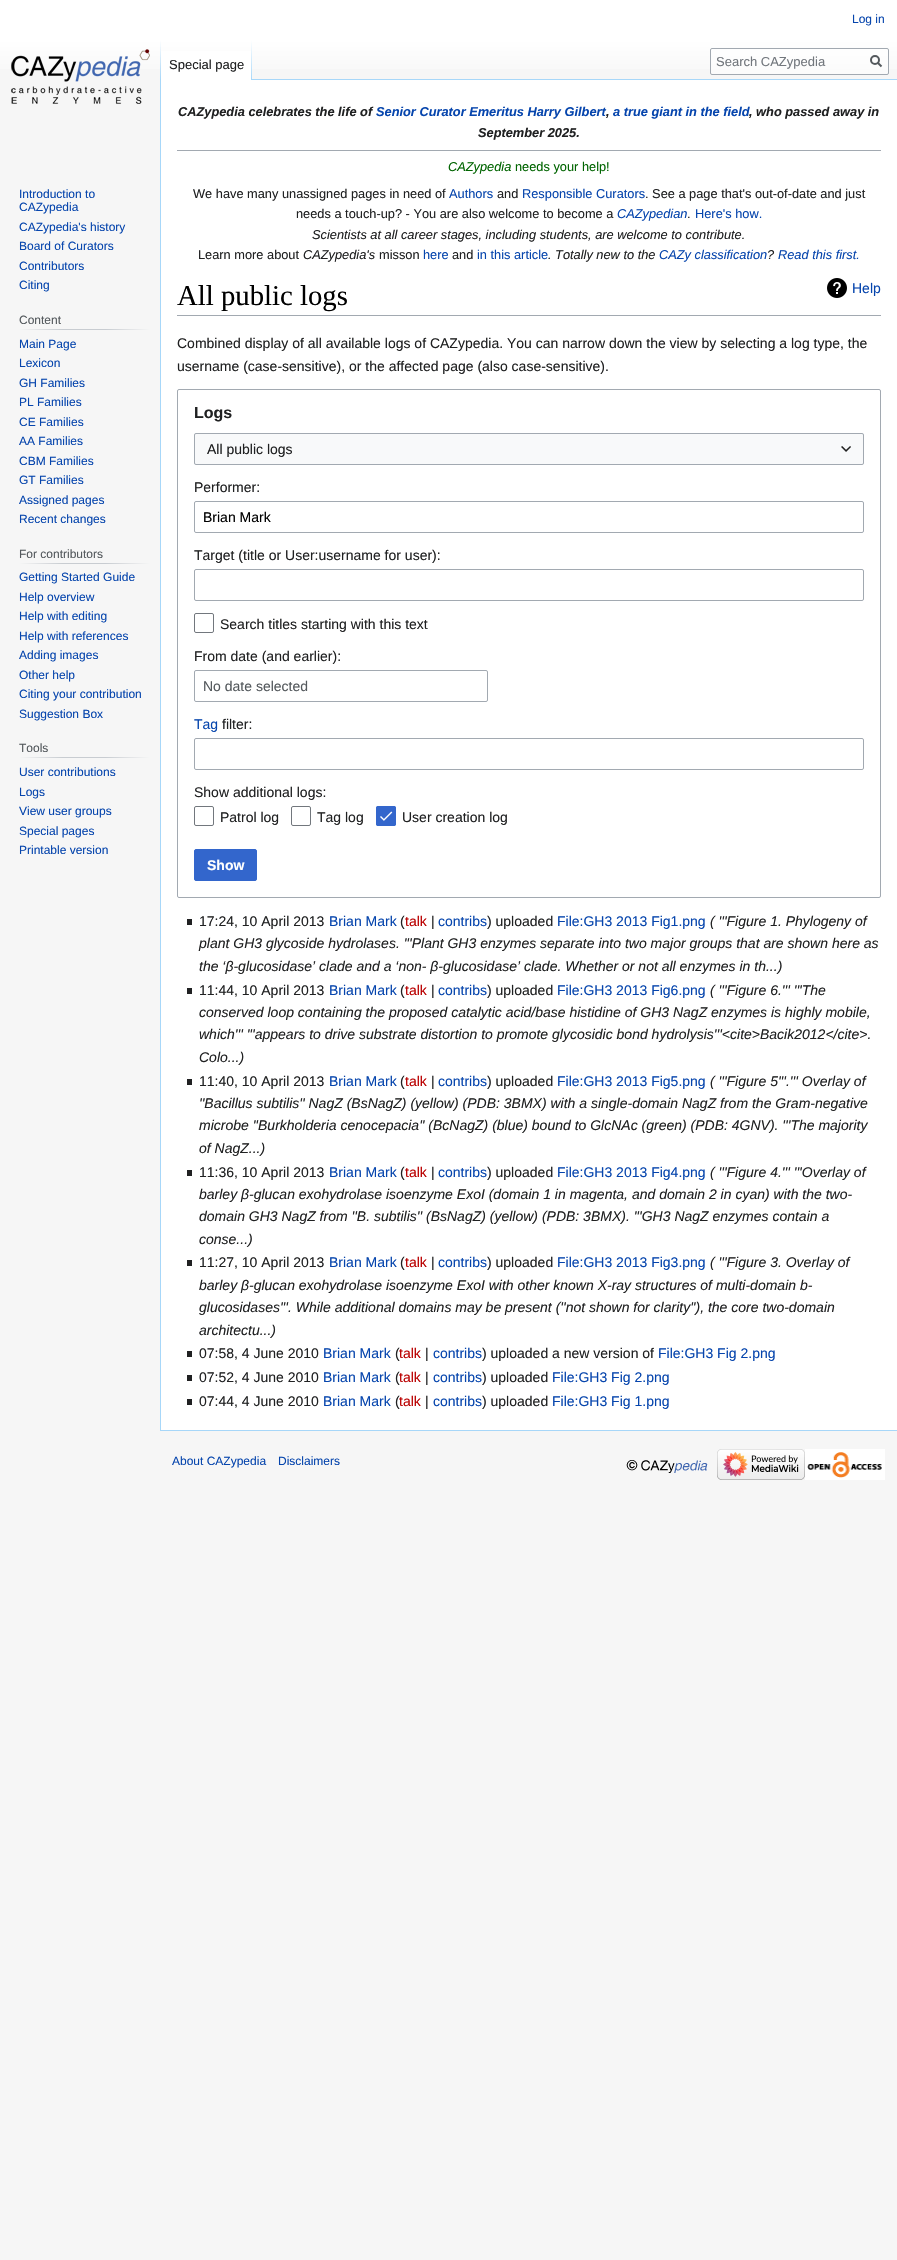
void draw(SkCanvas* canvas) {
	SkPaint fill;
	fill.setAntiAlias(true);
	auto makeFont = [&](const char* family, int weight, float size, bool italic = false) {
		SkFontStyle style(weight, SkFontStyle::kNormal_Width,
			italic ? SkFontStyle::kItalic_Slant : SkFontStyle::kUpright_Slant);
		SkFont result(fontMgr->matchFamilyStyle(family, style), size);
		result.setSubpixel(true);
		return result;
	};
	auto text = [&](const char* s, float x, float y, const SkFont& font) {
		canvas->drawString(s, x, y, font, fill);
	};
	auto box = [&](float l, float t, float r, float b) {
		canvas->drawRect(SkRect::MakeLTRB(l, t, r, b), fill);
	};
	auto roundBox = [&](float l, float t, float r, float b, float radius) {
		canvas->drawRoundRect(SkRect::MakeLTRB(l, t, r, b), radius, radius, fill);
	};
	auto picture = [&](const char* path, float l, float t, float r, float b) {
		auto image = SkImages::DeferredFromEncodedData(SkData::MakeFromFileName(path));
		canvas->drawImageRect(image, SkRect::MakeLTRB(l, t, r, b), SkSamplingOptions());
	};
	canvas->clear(0xFFF6F6F6);
	{
		const SkColor colors[] = {0xFFFFFFFF, 0xFFF6F6F6};
		const float stops[] = {0.5f, 1};
		const SkPoint ends[] = {{449, 0}, {449, 80}};
		fill.setShader(SkGradientShader::MakeLinear(ends, colors, stops, 2, SkTileMode::kClamp));
		fill.setAlpha(255);
	}
	box(0, 0, 897, 69);
	fill.setShader(nullptr);
	fill.setColor(0xFFA7D7F9);
	box(160, 1430, 897, 1431);
	box(160, 79, 161, 1431);
	{
		const SkColor colors[] = {0x00A7D7F9, 0xFFA7D7F9};
		const float stops[] = {0, 1};
		const SkPoint ends[] = {{161, 40}, {161, 80}};
		fill.setShader(SkGradientShader::MakeLinear(ends, colors, stops, 2, SkTileMode::kClamp));
		fill.setAlpha(255);
	}
	box(160, 40, 161, 80);
	fill.setShader(nullptr);
	fill.setColor(0xFFFFFFFF);
	box(161, 51, 251, 80);
	{
		const SkColor colors[] = {0xFFFFFFFF, 0xFFA7D7F9};
		const float stops[] = {0, 1};
		const SkPoint ends[] = {{252, 40}, {252, 80}};
		fill.setShader(SkGradientShader::MakeLinear(ends, colors, stops, 2, SkTileMode::kClamp));
		fill.setAlpha(255);
	}
	box(251, 40, 252, 80);
	fill.setShader(nullptr);
	fill.setColor(0x80FFFFFF);
	canvas->drawRoundRect(SkRect::MakeLTRB(710.5f, 48.5f, 888.5f, 74.5f), 1.5f, 1.5f, fill);
	fill.setStyle(SkPaint::kStroke_Style);
	fill.setStrokeWidth(1);
	fill.setColor(0xFFA2A9B1);
	canvas->drawRoundRect(SkRect::MakeLTRB(710.5f, 48.5f, 888.5f, 74.5f), 1.5f, 1.5f, fill);
	fill.setStrokeWidth(2);
	fill.setColor(0xFF54595D);
	canvas->drawPath(SkPathBuilder().moveTo(881.5f, 66.5f).lineTo(877.5f, 62.5f).detach(), fill);
	canvas->drawCircle(875, 60, 4, fill);
	picture("image0.png", 11, 49, 150, 104);
	fill.setStyle(SkPaint::kFill_Style);
	{
		const SkColor colors[] = {0xFFF6F6F6, 0xFFC8CCD1, 0xFFC8CCD1, 0xFFF6F6F6};
		const float stops[] = {0, 0.33f, 0.66f, 1};
		const SkPoint ends[] = {{19, 330}, {150, 330}};
		fill.setShader(SkGradientShader::MakeLinear(ends, colors, stops, 4, SkTileMode::kClamp));
		fill.setAlpha(255);
	}
	box(19, 329, 150, 330);
	{
		const SkColor colors[] = {0xFFF6F6F6, 0xFFC8CCD1, 0xFFC8CCD1, 0xFFF6F6F6};
		const float stops[] = {0, 0.33f, 0.66f, 1};
		const SkPoint ends[] = {{19, 564}, {150, 564}};
		fill.setShader(SkGradientShader::MakeLinear(ends, colors, stops, 4, SkTileMode::kClamp));
		fill.setAlpha(255);
	}
	box(19, 563, 150, 564);
	{
		const SkColor colors[] = {0xFFF6F6F6, 0xFFC8CCD1, 0xFFC8CCD1, 0xFFF6F6F6};
		const float stops[] = {0, 0.33f, 0.66f, 1};
		const SkPoint ends[] = {{19, 758}, {150, 758}};
		fill.setShader(SkGradientShader::MakeLinear(ends, colors, stops, 4, SkTileMode::kClamp));
		fill.setAlpha(255);
	}
	box(19, 757, 150, 758);
	fill.setShader(nullptr);
	fill.setColor(0xFFFFFFFF);
	box(161, 80, 897, 1430);
	fill.setColor(0xFFA7D7F9);
	box(252, 79, 897, 80);
	fill.setColor(0xFFA2A9B1);
	box(177, 150, 881, 151);
	box(177, 315, 881, 316);
	picture("image1.png", 827, 278, 847, 298);
	fill.setStyle(SkPaint::kStroke_Style);
	fill.setStrokeWidth(1);
	canvas->drawRoundRect(SkRect::MakeLTRB(177.5f, 389.5f, 880.5f, 897.5f), 1.5f, 1.5f, fill);
	fill.setStyle(SkPaint::kFill_Style);
	fill.setColor(0xFFF8F9FA);
	box(194, 433, 864, 465);
	fill.setStyle(SkPaint::kStroke_Style);
	fill.setColor(0xFFA2A9B1);
	canvas->drawRoundRect(SkRect::MakeLTRB(194.5f, 433.5f, 863.5f, 464.5f), 1.5f, 1.5f, fill);
	picture("image2.png", 841, 446, 851, 452);
	canvas->drawRoundRect(SkRect::MakeLTRB(194.5f, 501.5f, 863.5f, 532.5f), 1.5f, 1.5f, fill);
	canvas->drawRoundRect(SkRect::MakeLTRB(194.5f, 569.5f, 863.5f, 600.5f), 1.5f, 1.5f, fill);
	fill.setColor(0xFF72777D);
	canvas->drawRoundRect(SkRect::MakeLTRB(194.5f, 613.5f, 213.5f, 632.5f), 1.5f, 1.5f, fill);
	fill.setColor(0xFFA2A9B1);
	canvas->drawRoundRect(SkRect::MakeLTRB(194.5f, 670.5f, 487.5f, 701.5f), 1.5f, 1.5f, fill);
	canvas->drawRoundRect(SkRect::MakeLTRB(194.5f, 738.5f, 863.5f, 769.5f), 1.5f, 1.5f, fill);
	fill.setColor(0xFF72777D);
	canvas->drawRoundRect(SkRect::MakeLTRB(194.5f, 806.5f, 213.5f, 825.5f), 1.5f, 1.5f, fill);
	canvas->drawRoundRect(SkRect::MakeLTRB(291.5f, 806.5f, 310.5f, 825.5f), 1.5f, 1.5f, fill);
	fill.setStyle(SkPaint::kFill_Style);
	fill.setColor(0xFF3366CC);
	roundBox(376, 806, 396, 826, 2);
	picture("image3.png", 380, 811, 393, 821);
	fill.setStyle(SkPaint::kStroke_Style);
	canvas->drawRoundRect(SkRect::MakeLTRB(376.5f, 806.5f, 395.5f, 825.5f), 1.5f, 1.5f, fill);
	fill.setStyle(SkPaint::kFill_Style);
	canvas->drawRoundRect(SkRect::MakeLTRB(194.5f, 849.5f, 256.5f, 880.5f), 1.5f, 1.5f, fill);
	fill.setStyle(SkPaint::kStroke_Style);
	canvas->drawRoundRect(SkRect::MakeLTRB(194.5f, 849.5f, 256.5f, 880.5f), 1.5f, 1.5f, fill);
	fill.setStyle(SkPaint::kFill_Style);
	fill.setColor(0xFF202122);
	box(187, 919, 192, 925);
	box(187, 988, 192, 994);
	box(187, 1079, 192, 1085);
	box(187, 1170, 192, 1176);
	box(187, 1260, 192, 1266);
	box(187, 1351, 192, 1357);
	box(187, 1375, 192, 1381);
	box(187, 1399, 192, 1405);
	picture("image4.png", 626, 1460, 708, 1473);
	picture("image5.png", 717, 1449, 805, 1480);
	picture("image6.png", 805, 1449, 885, 1480);
	auto font1 = makeFont("Liberation Sans", 400, 12);
	fill.setColor(0xFF0645AD);
	text("Log in", 852, 23, font1);
	auto font2 = makeFont("Liberation Sans", 400, 13);
	fill.setColor(0xFF202122);
	text("Special page", 169, 69, font2);
	fill.setColor(0xFF72777D);
	text("Search CAZypedia", 716, 66, font2);
	fill.setColor(0xFF0645AD);
	text("Introduction to", 19, 198, font1);
	text("CAZypedia", 19, 211, font1);
	text("CAZypedia's history", 19, 231, font1);
	text("Board of Curators", 19, 250, font1);
	text("Contributors", 19, 270, font1);
	text("Citing", 19, 289, font1);
	fill.setColor(0xFF54595D);
	text("Content", 19, 324, font1);
	fill.setColor(0xFF0645AD);
	text("Main Page", 19, 348, font1);
	text("Lexicon", 19, 367, font1);
	text("GH Families", 19, 387, font1);
	text("PL Families", 19, 406, font1);
	text("CE Families", 19, 426, font1);
	text("AA Families", 19, 445, font1);
	text("CBM Families", 19, 465, font1);
	text("GT Families", 19, 484, font1);
	text("Assigned pages", 19, 504, font1);
	text("Recent changes", 19, 523, font1);
	fill.setColor(0xFF54595D);
	text("For contributors", 19, 558, font1);
	fill.setColor(0xFF0645AD);
	text("Getting Started Guide", 19, 581, font1);
	text("Help overview", 19, 601, font1);
	text("Help with editing", 19, 620, font1);
	text("Help with references", 19, 640, font1);
	text("Adding images", 19, 659, font1);
	text("Other help", 19, 679, font1);
	text("Citing your contribution", 19, 698, font1);
	text("Suggestion Box", 19, 718, font1);
	fill.setColor(0xFF54595D);
	text("Tools", 19, 752, font1);
	fill.setColor(0xFF0645AD);
	text("User contributions", 19, 776, font1);
	text("Logs", 19, 796, font1);
	text("View user groups", 19, 815, font1);
	text("Special pages", 19, 835, font1);
	text("Printable version", 19, 854, font1);
	auto font3 = makeFont("Liberation Sans", 700, 12.8f, true);
	fill.setColor(0xFF202122);
	text("CAZypedia celebrates the life of", 178, 116, font3);
	fill.setColor(0xFF0645AD);
	text("Senior Curator Emeritus Harry Gilbert", 376, 116, font3);
	text("a true giant in the field", 613, 116, font3);
	fill.setColor(0xFF202122);
	text(", who passed away in", 749, 116, font3);
	text(",", 606, 116, font3);
	text("September 2025.", 478, 137, font3);
	auto font4 = makeFont("Liberation Sans", 400, 12.8f, true);
	fill.setColor(0xFF006400);
	text("CAZypedia", 448, 171, font4);
	auto font5 = makeFont("Liberation Sans", 400, 12.8f);
	text("needs your help!", 515, 171, font5);
	fill.setColor(0xFF202122);
	text("We have many unassigned pages in need of", 193, 198, font5);
	fill.setColor(0xFF0645AD);
	text("Authors", 449, 198, font5);
	fill.setColor(0xFF202122);
	text("and", 497, 198, font5);
	fill.setColor(0xFF0645AD);
	text("Responsible Curators", 522, 198, font5);
	fill.setColor(0xFF202122);
	text(". See a page that's out-of-date and just", 645, 198, font5);
	text("needs a touch-up? - You are also welcome to become a", 296, 218, font5);
	fill.setColor(0xFF0645AD);
	text("CAZypedian", 617, 218, font4);
	fill.setColor(0xFF202122);
	text(".", 687, 218, font5);
	fill.setColor(0xFF0645AD);
	text("Here's how.", 695, 218, font5);
	fill.setColor(0xFF202122);
	text("Scientists at all career stages, including students, are welcome to contribute.", 312, 239, font4);
	text("Learn more about", 198, 259, font5);
	text("CAZypedia's", 303, 259, font4);
	text("misson", 379, 259, font5);
	fill.setColor(0xFF0645AD);
	text("here", 423, 259, font5);
	fill.setColor(0xFF202122);
	text("and", 452, 259, font5);
	fill.setColor(0xFF0645AD);
	text("in this article", 477, 259, font5);
	fill.setColor(0xFF202122);
	text(". Totally new to the", 548, 259, font4);
	fill.setColor(0xFF0645AD);
	text("CAZy classification", 659, 259, font4);
	fill.setColor(0xFF202122);
	text("?", 767, 259, font4);
	fill.setColor(0xFF0645AD);
	text("Read this first.", 778, 259, font4);
	auto font6 = makeFont("Liberation Serif", 400, 28.75f);
	fill.setColor(0xFF000000);
	text("All public logs", 177, 305, font6);
	auto font7 = makeFont("Liberation Sans", 400, 14);
	fill.setColor(0xFF0645AD);
	text("Help", 852, 293, font7);
	fill.setColor(0xFF202122);
	text("Combined display of all available logs of CAZypedia. You can narrow down the view by selecting a log type, the", 177, 348, font7);
	text("username (case-sensitive), or the affected page (also case-sensitive).", 177, 371, font7);
	auto font8 = makeFont("Liberation Sans", 700, 16);
	text("Logs", 194, 418, font8);
	text("All public logs", 207, 454, font7);
	text("Performer:", 194, 492, font7);
	fill.setColor(0xFF000000);
	text("Brian Mark", 203, 522, font7);
	fill.setColor(0xFF202122);
	text("Target (title or User:username for user):", 194, 560, font7);
	text("Search titles starting with this text", 220, 629, font7);
	text("From date (and earlier):", 194, 661, font7);
	fill.setColor(0xFF54595D);
	text("No date selected", 203, 691, font7);
	fill.setColor(0xFF0645AD);
	text("Tag", 194, 729, font7);
	fill.setColor(0xFF202122);
	text("filter:", 222, 729, font7);
	text("Show additional logs:", 194, 797, font7);
	text("Patrol log", 220, 822, font7);
	text("Tag log", 317, 822, font7);
	text("User creation log", 402, 822, font7);
	auto font9 = makeFont("Liberation Sans", 700, 14);
	fill.setColor(0xFFFFFFFF);
	text("Show", 207, 870, font9);
	fill.setColor(0xFF202122);
	text("17:24, 10 April 2013", 199, 926, font7);
	fill.setColor(0xFF0645AD);
	text("Brian Mark", 329, 926, font7);
	fill.setColor(0xFF202122);
	text("(", 400, 926, font7);
	fill.setColor(0xFFBA0000);
	text("talk", 405, 926, font7);
	fill.setColor(0xFF202122);
	text("|", 431, 926, font7);
	fill.setColor(0xFF0645AD);
	text("contribs", 438, 926, font7);
	fill.setColor(0xFF202122);
	text(") uploaded", 487, 926, font7);
	fill.setColor(0xFF0645AD);
	text("File:GH3 2013 Fig1.png", 557, 926, font7);
	auto font10 = makeFont("Liberation Sans", 400, 14, true);
	fill.setColor(0xFF202122);
	text("( '''Figure 1. Phylogeny of", 710, 926, font10);
	text("plant GH3 glycoside hydrolases. '''Plant GH3 enzymes separate into two major groups that are shown here as", 199, 948, font10);
	text("the ‘β-glucosidase’ clade and a ‘non- β-glucosidase’ clade. Whether or not all enzymes in th...)", 199, 971, font10);
	text("11:44, 10 April 2013", 199, 995, font7);
	fill.setColor(0xFF0645AD);
	text("Brian Mark", 329, 995, font7);
	fill.setColor(0xFF202122);
	text("(", 400, 995, font7);
	fill.setColor(0xFFBA0000);
	text("talk", 405, 995, font7);
	fill.setColor(0xFF202122);
	text("|", 431, 995, font7);
	fill.setColor(0xFF0645AD);
	text("contribs", 438, 995, font7);
	fill.setColor(0xFF202122);
	text(") uploaded", 487, 995, font7);
	fill.setColor(0xFF0645AD);
	text("File:GH3 2013 Fig6.png", 557, 995, font7);
	fill.setColor(0xFF202122);
	text("( '''Figure 6.''' '''The", 710, 995, font10);
	text("conserved loop containing the proposed catalytic acid/base histidine of GH3 NagZ enzymes is highly mobile,", 199, 1017, font10);
	text("which''' '''appears to drive substrate distortion to promote glycosidic bond hydrolysis'''<cite>Bacik2012</cite>.", 199, 1039, font10);
	text("Colo...)", 199, 1062, font10);
	text("11:40, 10 April 2013", 199, 1086, font7);
	fill.setColor(0xFF0645AD);
	text("Brian Mark", 329, 1086, font7);
	fill.setColor(0xFF202122);
	text("(", 400, 1086, font7);
	fill.setColor(0xFFBA0000);
	text("talk", 405, 1086, font7);
	fill.setColor(0xFF202122);
	text("|", 431, 1086, font7);
	fill.setColor(0xFF0645AD);
	text("contribs", 438, 1086, font7);
	fill.setColor(0xFF202122);
	text(") uploaded", 487, 1086, font7);
	fill.setColor(0xFF0645AD);
	text("File:GH3 2013 Fig5.png", 557, 1086, font7);
	fill.setColor(0xFF202122);
	text("( '''Figure 5'''.''' Overlay of", 710, 1086, font10);
	text("''Bacillus subtilis'' NagZ (BsNagZ) (yellow) (PDB: 3BMX) with a single-domain NagZ from the Gram-negative", 199, 1108, font10);
	text("microbe ''Burkholderia cenocepacia'' (BcNagZ) (blue) bound to GlcNAc (green) (PDB: 4GNV). '''The majority", 199, 1130, font10);
	text("of NagZ...)", 199, 1153, font10);
	text("11:36, 10 April 2013", 199, 1177, font7);
	fill.setColor(0xFF0645AD);
	text("Brian Mark", 329, 1177, font7);
	fill.setColor(0xFF202122);
	text("(", 400, 1177, font7);
	fill.setColor(0xFFBA0000);
	text("talk", 405, 1177, font7);
	fill.setColor(0xFF202122);
	text("|", 431, 1177, font7);
	fill.setColor(0xFF0645AD);
	text("contribs", 438, 1177, font7);
	fill.setColor(0xFF202122);
	text(") uploaded", 487, 1177, font7);
	fill.setColor(0xFF0645AD);
	text("File:GH3 2013 Fig4.png", 557, 1177, font7);
	fill.setColor(0xFF202122);
	text("( '''Figure 4.''' '''Overlay of", 710, 1177, font10);
	text("barley β-glucan exohydrolase isoenzyme ExoI (domain 1 in magenta, and domain 2 in cyan) with the two-", 199, 1199, font10);
	text("domain GH3 NagZ from ''B. subtilis'' (BsNagZ) (yellow) (PDB: 3BMX). '''GH3 NagZ enzymes contain a", 199, 1221, font10);
	text("conse...)", 199, 1244, font10);
	text("11:27, 10 April 2013", 199, 1267, font7);
	fill.setColor(0xFF0645AD);
	text("Brian Mark", 329, 1267, font7);
	fill.setColor(0xFF202122);
	text("(", 400, 1267, font7);
	fill.setColor(0xFFBA0000);
	text("talk", 405, 1267, font7);
	fill.setColor(0xFF202122);
	text("|", 431, 1267, font7);
	fill.setColor(0xFF0645AD);
	text("contribs", 438, 1267, font7);
	fill.setColor(0xFF202122);
	text(") uploaded", 487, 1267, font7);
	fill.setColor(0xFF0645AD);
	text("File:GH3 2013 Fig3.png", 557, 1267, font7);
	fill.setColor(0xFF202122);
	text("( '''Figure 3. Overlay of", 710, 1267, font10);
	text("barley β-glucan exohydrolase isoenzyme ExoI with other known X-ray structures of multi-domain b-", 199, 1290, font10);
	text("glucosidases'''. While additional domains may be present (''not shown for clarity''), the core two-domain", 199, 1312, font10);
	text("architectu...)", 199, 1335, font10);
	text("07:58, 4 June 2010", 199, 1358, font7);
	fill.setColor(0xFF0645AD);
	text("Brian Mark", 323, 1358, font7);
	fill.setColor(0xFF202122);
	text("(", 395, 1358, font7);
	fill.setColor(0xFFBA0000);
	text("talk", 399, 1358, font7);
	fill.setColor(0xFF202122);
	text("|", 425, 1358, font7);
	fill.setColor(0xFF0645AD);
	text("contribs", 433, 1358, font7);
	fill.setColor(0xFF202122);
	text(") uploaded a new version of", 482, 1358, font7);
	fill.setColor(0xFF0645AD);
	text("File:GH3 Fig 2.png", 658, 1358, font7);
	fill.setColor(0xFF202122);
	text("07:52, 4 June 2010", 199, 1382, font7);
	fill.setColor(0xFF0645AD);
	text("Brian Mark", 323, 1382, font7);
	fill.setColor(0xFF202122);
	text("(", 395, 1382, font7);
	fill.setColor(0xFFBA0000);
	text("talk", 399, 1382, font7);
	fill.setColor(0xFF202122);
	text("|", 425, 1382, font7);
	fill.setColor(0xFF0645AD);
	text("contribs", 433, 1382, font7);
	fill.setColor(0xFF202122);
	text(") uploaded", 482, 1382, font7);
	fill.setColor(0xFF0645AD);
	text("File:GH3 Fig 2.png", 552, 1382, font7);
	fill.setColor(0xFF202122);
	text("07:44, 4 June 2010", 199, 1406, font7);
	fill.setColor(0xFF0645AD);
	text("Brian Mark", 323, 1406, font7);
	fill.setColor(0xFF202122);
	text("(", 395, 1406, font7);
	fill.setColor(0xFFBA0000);
	text("talk", 399, 1406, font7);
	fill.setColor(0xFF202122);
	text("|", 425, 1406, font7);
	fill.setColor(0xFF0645AD);
	text("contribs", 433, 1406, font7);
	fill.setColor(0xFF202122);
	text(") uploaded", 482, 1406, font7);
	fill.setColor(0xFF0645AD);
	text("File:GH3 Fig 1.png", 552, 1406, font7);
	text("About CAZypedia", 172, 1465, font1);
	text("Disclaimers", 278, 1465, font1);
}
